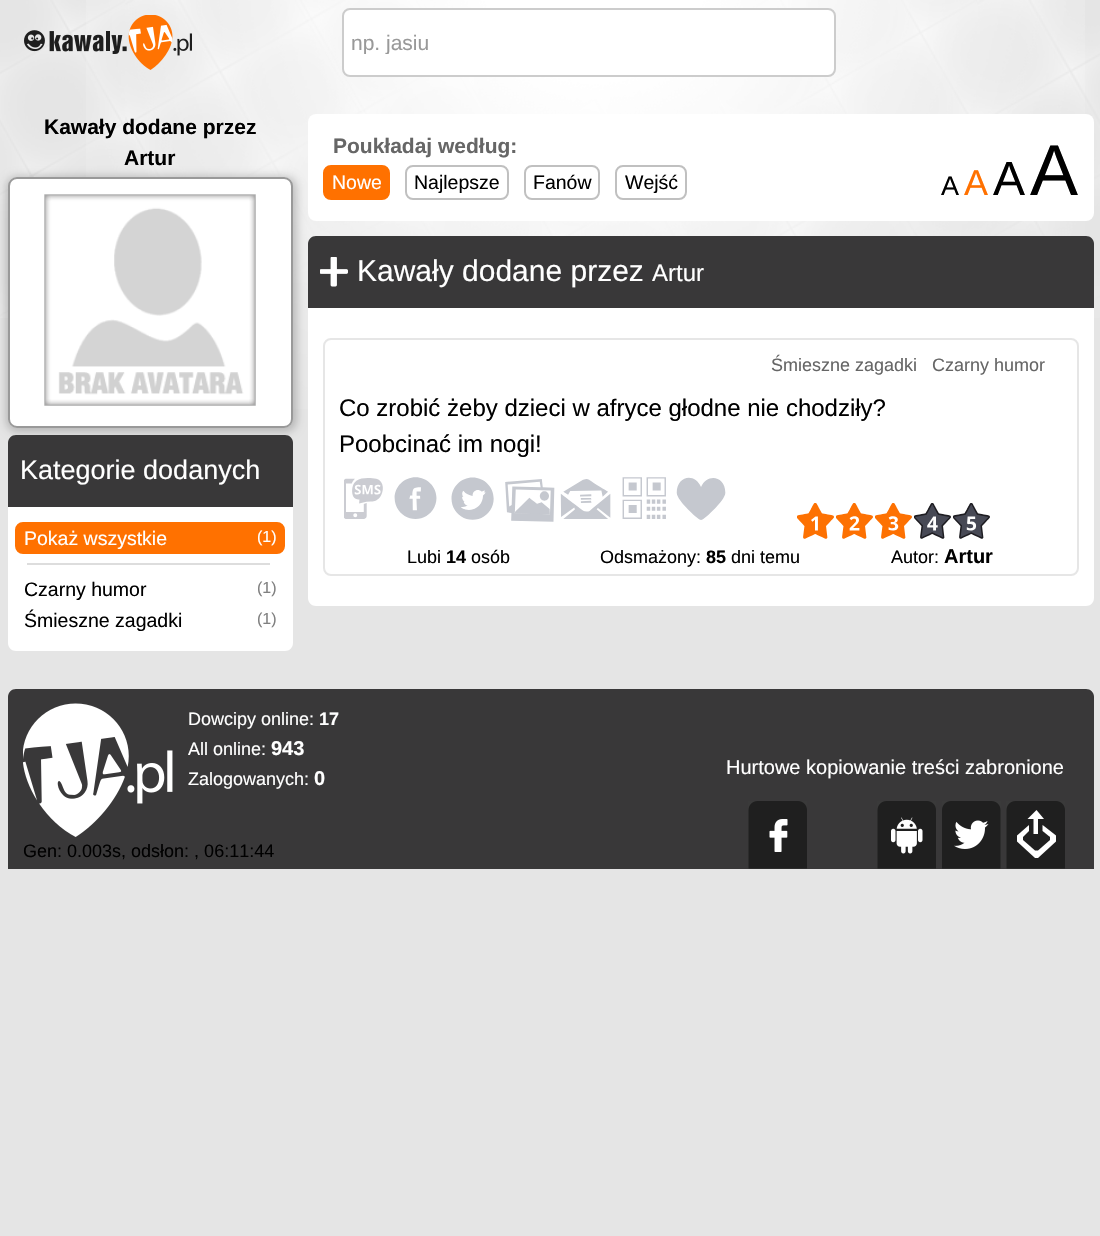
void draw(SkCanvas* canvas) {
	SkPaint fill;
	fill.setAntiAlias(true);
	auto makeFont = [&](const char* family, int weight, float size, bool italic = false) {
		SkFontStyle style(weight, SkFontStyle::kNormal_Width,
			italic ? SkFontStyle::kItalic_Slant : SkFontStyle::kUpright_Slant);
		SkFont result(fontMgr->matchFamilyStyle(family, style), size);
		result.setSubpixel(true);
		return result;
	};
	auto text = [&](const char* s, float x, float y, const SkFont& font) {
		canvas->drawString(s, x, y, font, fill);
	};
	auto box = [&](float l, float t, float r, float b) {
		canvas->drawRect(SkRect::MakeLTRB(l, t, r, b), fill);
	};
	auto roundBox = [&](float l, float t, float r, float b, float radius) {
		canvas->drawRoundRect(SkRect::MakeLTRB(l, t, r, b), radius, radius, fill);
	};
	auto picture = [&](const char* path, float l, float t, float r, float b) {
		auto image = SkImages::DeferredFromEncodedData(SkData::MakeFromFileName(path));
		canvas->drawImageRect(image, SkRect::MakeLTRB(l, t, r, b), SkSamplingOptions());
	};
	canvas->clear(0xFFE5E5E5);
	picture("image0.png", 86, 0, 1085, 409);
	picture("image1.png", 0, 0, 1100, 318);
	picture("image2.png", 24, 15, 192, 70);
	fill.setColor(0xFFFFFFFF);
	canvas->drawRoundRect(SkRect::MakeLTRB(343, 9, 835, 76), 7, 7, fill);
	fill.setStyle(SkPaint::kStroke_Style);
	fill.setStrokeWidth(2);
	fill.setColor(0xFFCCCCCC);
	canvas->drawRoundRect(SkRect::MakeLTRB(343, 9, 835, 76), 7, 7, fill);
	fill.setStyle(SkPaint::kFill_Style);
	fill.setColor(0x33000000);
	fill.setMaskFilter(SkMaskFilter::MakeBlur(kNormal_SkBlurStyle, 4));
	canvas->drawRoundRect(SkRect::MakeLTRB(6, 176, 297, 432), 12, 12, fill);
	fill.setMaskFilter(nullptr);
	fill.setColor(0xFFFFFFFF);
	roundBox(8, 177, 293, 428, 9);
	fill.setStyle(SkPaint::kStroke_Style);
	fill.setColor(0x66000000);
	canvas->drawRoundRect(SkRect::MakeLTRB(9, 178, 292, 427), 8, 8, fill);
	picture("image3.png", 44, 194, 256, 406);
	fill.setStyle(SkPaint::kFill_Style);
	fill.setColor(0xFF393839);
	canvas->drawPath(SkPathBuilder().moveTo(16, 435).lineTo(285, 435).cubicTo(289.5f, 435, 293, 438.5f, 293, 443).lineTo(293, 507).lineTo(8, 507).lineTo(8, 443).cubicTo(8, 438.5f, 11.5f, 435, 16, 435).close().detach(), fill);
	fill.setColor(0xFFFFFFFF);
	canvas->drawPath(SkPathBuilder().moveTo(8, 507).lineTo(293, 507).lineTo(293, 643).cubicTo(293, 647.5f, 289.5f, 651, 285, 651).lineTo(16, 651).cubicTo(11.5f, 651, 8, 647.5f, 8, 643).close().detach(), fill);
	fill.setColor(0xFFFF7100);
	canvas->drawRoundRect(SkRect::MakeLTRB(16, 523, 284, 553), 7, 7, fill);
	fill.setStyle(SkPaint::kStroke_Style);
	canvas->drawRoundRect(SkRect::MakeLTRB(16, 523, 284, 553), 7, 7, fill);
	fill.setStyle(SkPaint::kFill_Style);
	fill.setColor(0xFFDDDDDD);
	box(27, 563, 270, 565);
	fill.setColor(0xFFFFFFFF);
	roundBox(308, 114, 1094, 221, 8);
	fill.setColor(0xFFFF7100);
	canvas->drawRoundRect(SkRect::MakeLTRB(324, 166, 389, 199), 7, 7, fill);
	fill.setStyle(SkPaint::kStroke_Style);
	canvas->drawRoundRect(SkRect::MakeLTRB(324, 166, 389, 199), 7, 7, fill);
	fill.setColor(0xFFC0C0C0);
	canvas->drawRoundRect(SkRect::MakeLTRB(406, 166, 508, 199), 7, 7, fill);
	canvas->drawRoundRect(SkRect::MakeLTRB(525, 166, 599, 199), 7, 7, fill);
	canvas->drawRoundRect(SkRect::MakeLTRB(616, 166, 686, 199), 7, 7, fill);
	fill.setStyle(SkPaint::kFill_Style);
	fill.setColor(0xFF393839);
	canvas->drawPath(SkPathBuilder().moveTo(316, 236).lineTo(1086, 236).cubicTo(1090.5f, 236, 1094, 239.5f, 1094, 244).lineTo(1094, 308).lineTo(308, 308).lineTo(308, 244).cubicTo(308, 239.5f, 311.5f, 236, 316, 236).close().detach(), fill);
	picture("image4.png", 320, 257, 348, 287);
	fill.setColor(0xFFFFFFFF);
	canvas->drawPath(SkPathBuilder().moveTo(308, 308).lineTo(1094, 308).lineTo(1094, 598).cubicTo(1094, 602.5f, 1090.5f, 606, 1086, 606).lineTo(316, 606).cubicTo(311.5f, 606, 308, 602.5f, 308, 598).close().detach(), fill);
	fill.setStyle(SkPaint::kStroke_Style);
	fill.setColor(0xFFE6E6E6);
	canvas->drawRoundRect(SkRect::MakeLTRB(324, 339, 1078, 575), 7, 7, fill);
	picture("image5.png", 344, 478, 383, 519);
	picture("image6.png", 394, 477, 437, 519);
	picture("image7.png", 451, 477, 494, 520);
	picture("image8.png", 505, 479, 555, 522);
	picture("image9.png", 560, 479, 611, 519);
	picture("image10.png", 622, 477, 666, 519);
	picture("image11.png", 676, 477, 726, 520);
	picture("image12.png", 797, 503, 834, 539);
	picture("image13.png", 836, 503, 873, 539);
	picture("image14.png", 875, 503, 912, 539);
	picture("image15.png", 914, 503, 951, 539);
	picture("image16.png", 953, 503, 990, 539);
	fill.setStyle(SkPaint::kFill_Style);
	fill.setColor(0xFF393839);
	canvas->drawPath(SkPathBuilder().moveTo(16, 689).lineTo(1086, 689).cubicTo(1090.5f, 689, 1094, 692.5f, 1094, 697).lineTo(1094, 869).lineTo(8, 869).lineTo(8, 697).cubicTo(8, 692.5f, 11.5f, 689, 16, 689).close().detach(), fill);
	picture("image17.png", 23, 703, 173, 837);
	picture("image18.png", 748, 801, 807, 869);
	picture("image19.png", 877, 801, 936, 869);
	picture("image20.png", 942, 801, 1001, 869);
	picture("image21.png", 1006, 801, 1065, 869);
	canvas->save();
	canvas->clipRect(SkRect::MakeLTRB(351, 30, 834, 54));
	auto font1 = makeFont("Liberation Sans", 400, 21);
	fill.setColor(0xFF999999);
	text("np. jasiu", 351, 50, font1);
	canvas->restore();
	auto font2 = makeFont("Liberation Sans", 700, 21);
	fill.setColor(0xFF000000);
	text("Kawały dodane przez", 44, 134, font2);
	text("Artur", 124, 165, font2);
	auto font3 = makeFont("Liberation Sans", 400, 27);
	fill.setColor(0xFFFFFFFF);
	text("Kategorie dodanych", 20, 479, font3);
	auto font4 = makeFont("Liberation Sans", 400, 19.5f);
	text("Pokaż wszystkie", 24, 545, font4);
	auto font5 = makeFont("Liberation Sans", 400, 16);
	text("(1)", 257, 542, font5);
	fill.setColor(0xFF000000);
	text("Czarny humor", 24, 596, font4);
	fill.setColor(0xFF808080);
	text("(1)", 257, 593, font5);
	fill.setColor(0xFF000000);
	text("Śmieszne zagadki", 24, 627, font4);
	fill.setColor(0xFF808080);
	text("(1)", 257, 624, font5);
	fill.setColor(0xFF666666);
	text("Poukładaj według:", 333, 153, font2);
	fill.setColor(0xFFFFFFFF);
	text("Nowe", 332, 189, font4);
	fill.setColor(0xFF000000);
	text("Najlepsze", 414, 189, font4);
	text("Fanów", 533, 189, font4);
	text("Wejść", 625, 189, font4);
	text("A", 941, 195, font3);
	auto font6 = makeFont("Liberation Sans", 400, 36);
	fill.setColor(0xFFFF7100);
	text("A", 964, 195, font6);
	auto font7 = makeFont("Liberation Sans", 400, 48);
	fill.setColor(0xFF000000);
	text("A", 993, 195, font7);
	auto font8 = makeFont("Liberation Sans", 400, 72);
	text("A", 1030, 195, font8);
	auto font9 = makeFont("Liberation Sans", 400, 30);
	fill.setColor(0xFFFFFFFF);
	text("Kawały dodane przez", 357, 281, font9);
	auto font10 = makeFont("Liberation Sans", 400, 24);
	text("Artur", 652, 281, font10);
	auto font11 = makeFont("Liberation Sans", 400, 18);
	fill.setColor(0xFF666666);
	text("Śmieszne zagadki", 771, 371, font11);
	text("Czarny humor", 932, 371, font11);
	fill.setColor(0xFF000000);
	text("Co zrobić żeby dzieci w afryce głodne nie chodziły?", 339, 416, font10);
	text("Poobcinać im nogi!", 339, 452, font10);
	text("Lubi", 407, 563, font11);
	auto font12 = makeFont("Liberation Sans", 700, 18);
	text("14", 446, 563, font12);
	text("osób", 471, 563, font11);
	text("Odsmażony:", 600, 563, font11);
	text("85", 706, 563, font12);
	text("dni temu", 731, 563, font11);
	text("Autor:", 891, 563, font11);
	auto font13 = makeFont("Liberation Sans", 700, 20);
	text("Artur", 944, 563, font13);
	fill.setColor(0xFFFFFFFF);
	text("Dowcipy online:", 188, 725, font11);
	text("17", 319, 725, font12);
	text("All online:", 188, 755, font11);
	text("943", 271, 755, font13);
	text("Zalogowanych:", 188, 785, font11);
	text("0", 314, 785, font13);
	auto font14 = makeFont("Liberation Sans", 400, 20);
	text("Hurtowe kopiowanie treści zabronione", 726, 774, font14);
	fill.setColor(0xFF000000);
	text("Gen: 0.003s, odsłon: , 06:11:44", 23, 857, font11);
}
